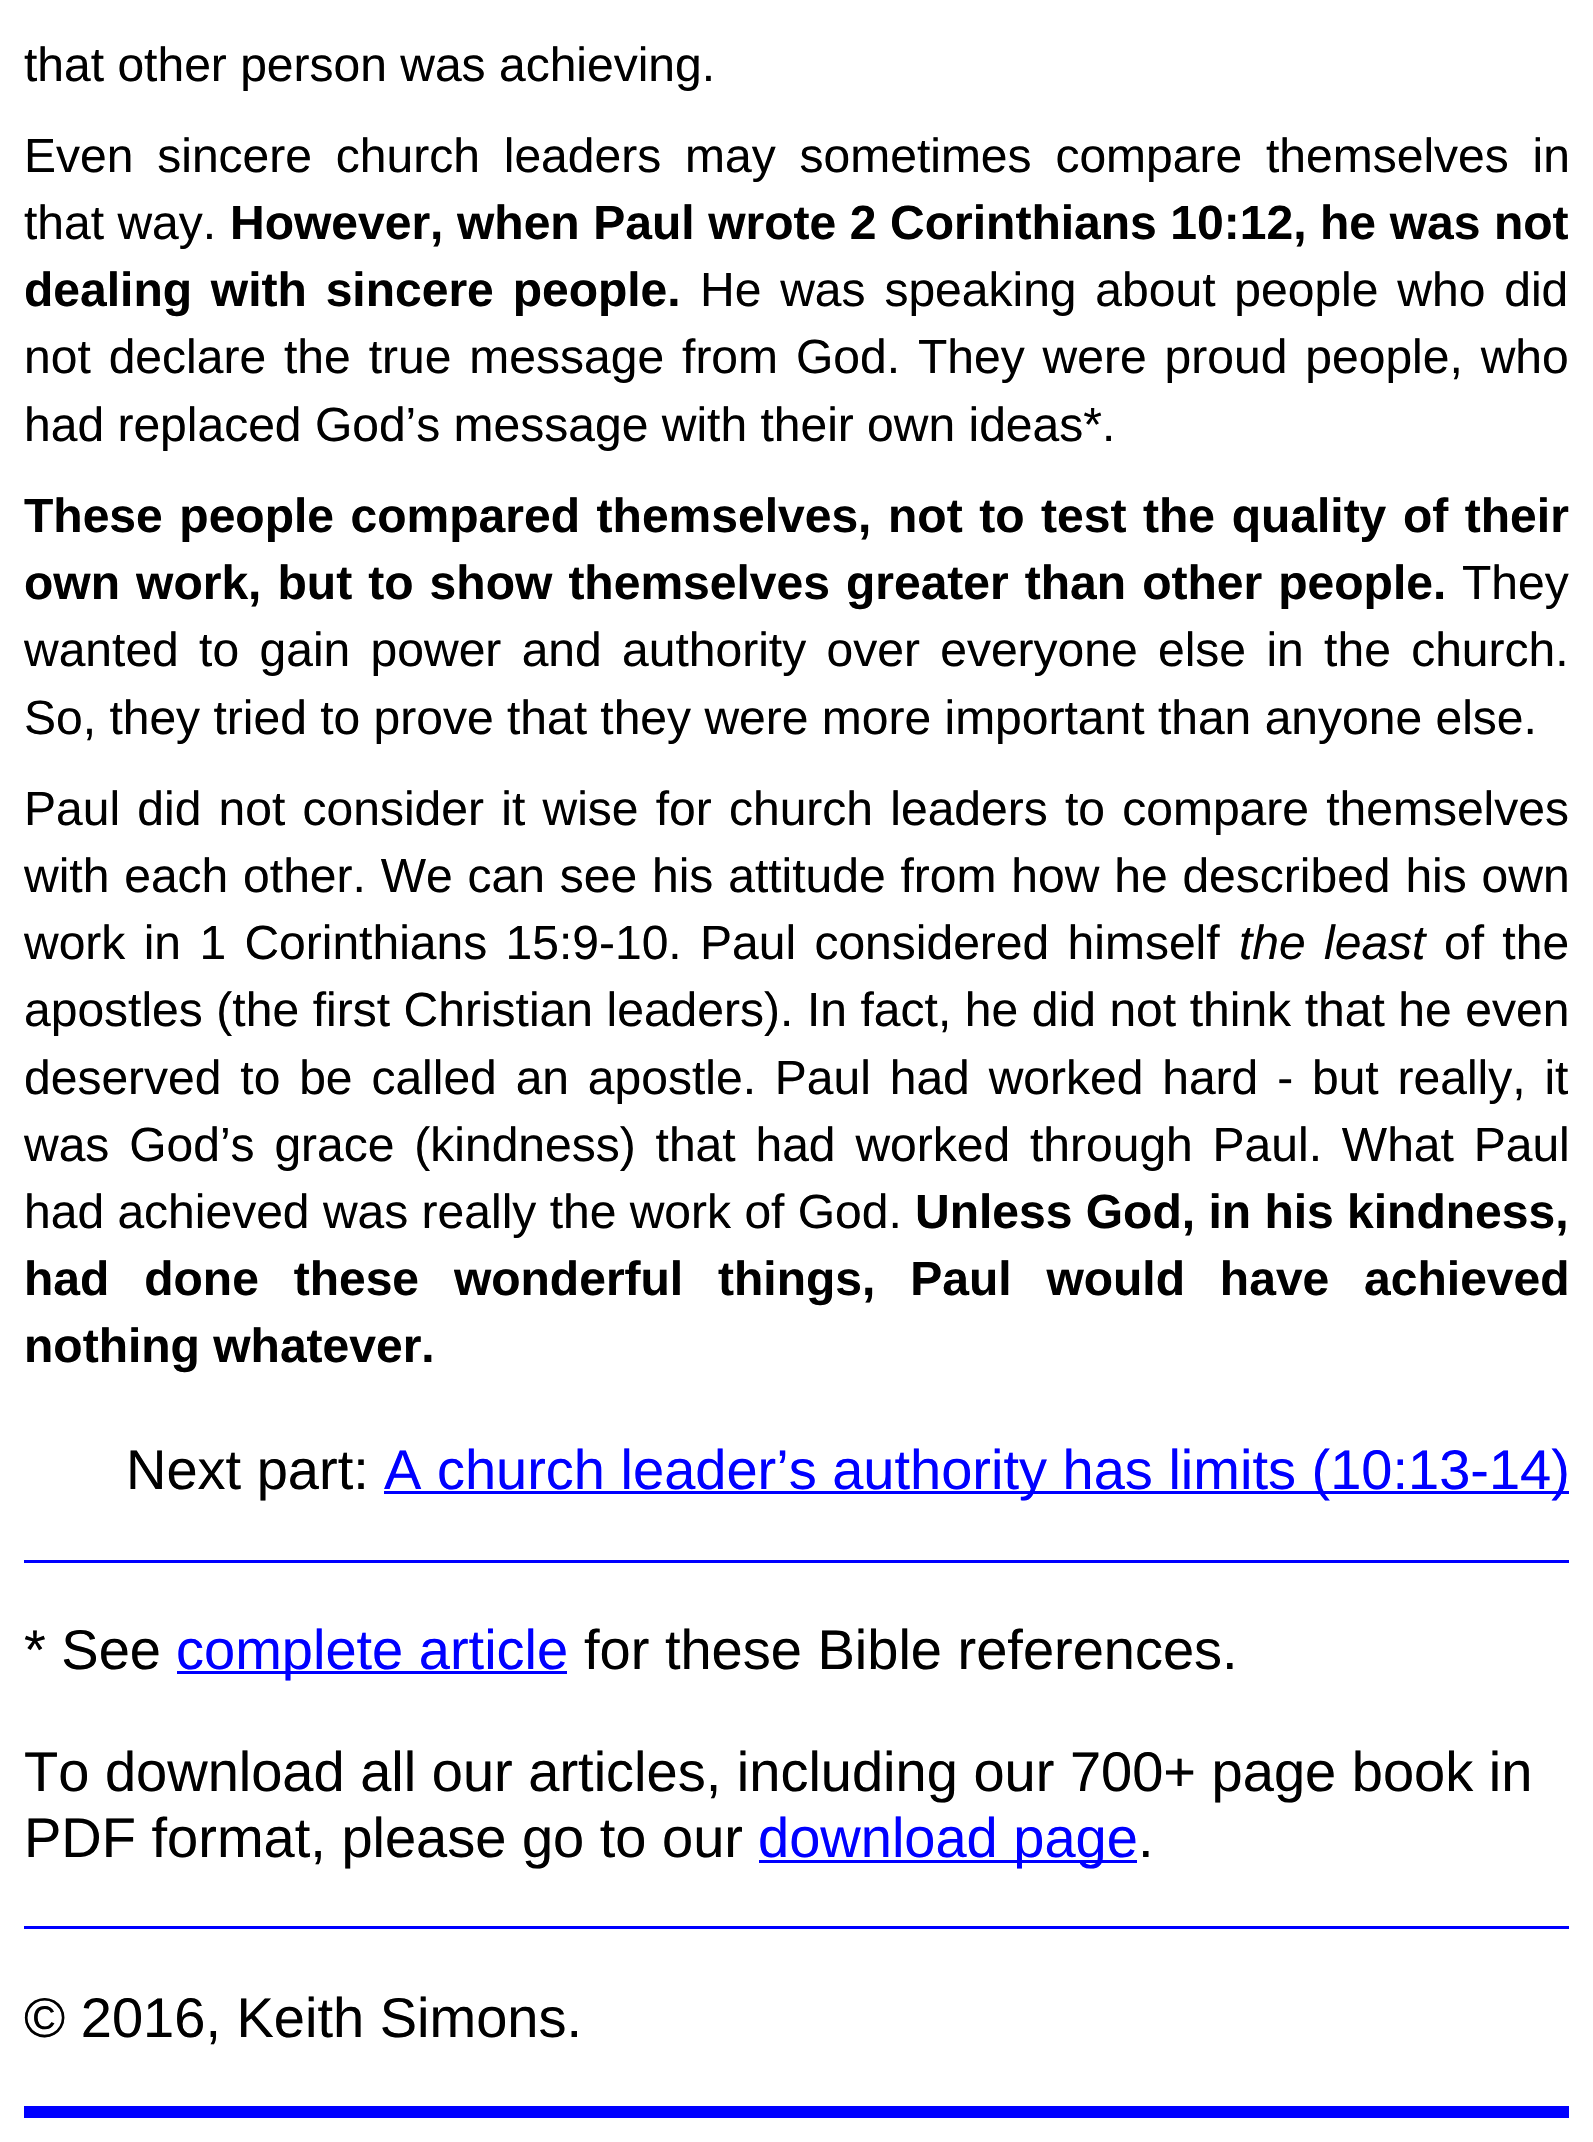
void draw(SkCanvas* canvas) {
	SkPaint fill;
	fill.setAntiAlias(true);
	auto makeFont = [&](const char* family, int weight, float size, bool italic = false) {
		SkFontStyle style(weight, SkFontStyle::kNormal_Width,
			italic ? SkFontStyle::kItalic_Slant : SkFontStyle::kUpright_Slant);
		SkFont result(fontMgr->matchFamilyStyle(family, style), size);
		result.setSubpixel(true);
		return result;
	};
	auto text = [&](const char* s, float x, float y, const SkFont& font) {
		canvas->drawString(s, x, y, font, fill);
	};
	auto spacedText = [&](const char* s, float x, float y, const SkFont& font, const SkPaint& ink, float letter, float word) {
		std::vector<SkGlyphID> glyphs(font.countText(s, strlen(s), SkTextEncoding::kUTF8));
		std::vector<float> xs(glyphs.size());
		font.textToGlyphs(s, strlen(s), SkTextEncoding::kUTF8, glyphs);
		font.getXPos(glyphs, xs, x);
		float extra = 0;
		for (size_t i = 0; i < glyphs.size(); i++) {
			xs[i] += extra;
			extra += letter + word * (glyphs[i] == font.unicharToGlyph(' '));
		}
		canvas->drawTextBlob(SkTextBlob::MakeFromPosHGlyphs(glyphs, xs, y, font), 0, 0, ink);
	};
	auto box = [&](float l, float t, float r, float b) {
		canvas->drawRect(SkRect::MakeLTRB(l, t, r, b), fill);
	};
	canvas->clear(0xFFFFFFFF);
	fill.setColor(0xFF0000FF);
	box(384, 1491, 1569, 1494);
	box(24, 1560, 1569, 1563);
	box(177, 1671, 567, 1674);
	box(759, 1860, 1137, 1863);
	box(24, 1926, 1569, 1929);
	box(24, 2106, 1569, 2118);
	auto font1 = makeFont("Liberation Sans", 400, 48);
	fill.setColor(0xFF000000);
	text("that other person was achieving.", 24, 81, font1);
	spacedText("Even sincere church leaders may sometimes compare themselves in", 24, 172, font1, fill, 0, 10.5f);
	text("that way.", 24, 239, font1);
	auto font2 = makeFont("Liberation Sans", 700, 48);
	spacedText("However, when Paul wrote 2 Corinthians 10:12, he was not", 230, 239, font2, fill, 0, 0.25f);
	spacedText("dealing with sincere people.", 24, 306, font2, fill, 0, 5.5f);
	spacedText("He was speaking about people who did", 700, 306, font1, fill, 0, 5.5f);
	spacedText("not declare the true message from God. They were proud people, who", 24, 373, font1, fill, 0, 4.6f);
	text("had replaced God’s message with their own ideas*.", 24, 441, font1);
	spacedText("These people compared themselves, not to test the quality of their", 24, 532, font2, fill, 0, 3.25f);
	spacedText("own work, but to show themselves greater than other people.", 24, 599, font2, fill, 0, 2.75f);
	text("They", 1462, 599, font1);
	spacedText("wanted to gain power and authority over everyone else in the church.", 24, 666, font1, fill, 0, 7);
	text("So, they tried to prove that they were more important than anyone else.", 24, 734, font1);
	spacedText("Paul did not consider it wise for church leaders to compare themselves", 24, 825, font1, fill, 0, 3.9f);
	spacedText("with each other. We can see his attitude from how he described his own", 24, 892, font1, fill, 0, 1.5f);
	spacedText("work in 1 Corinthians 15:9-10. Paul considered himself", 24, 959, font1, fill, 0, 5);
	auto font3 = makeFont("Liberation Sans", 400, 48, true);
	spacedText("the least", 1239, 959, font3, fill, 0, 5);
	spacedText("of the", 1444, 959, font1, fill, 0, 5);
	spacedText("apostles (the first Christian leaders). In fact, he did not think that he even", 24, 1026, font1, fill, 0, 0.25f);
	spacedText("deserved to be called an apostle. Paul had worked hard - but really, it", 24, 1094, font1, fill, 0, 5.5f);
	spacedText("was God’s grace (kindness) that had worked through Paul. What Paul", 24, 1161, font1, fill, 0, 6.5f);
	text("had achieved was really the work of God.", 24, 1228, font1);
	text("Unless God, in his kindness,", 915, 1228, font2);
	spacedText("had done these wonderful things, Paul would have achieved", 24, 1295, font2, fill, 0, 21.5f);
	text("nothing whatever.", 24, 1362, font2);
	auto font4 = makeFont("Liberation Sans", 400, 56);
	text("Next part:", 126, 1489, font4);
	fill.setColor(0xFF0000FF);
	text("A church leader’s authority has limits (10:13-14)", 384, 1489, font4);
	fill.setColor(0xFF000000);
	text("* See", 24, 1669, font4);
	fill.setColor(0xFF0000FF);
	text("complete article", 176, 1669, font4);
	fill.setColor(0xFF000000);
	text("for these Bible references.", 584, 1669, font4);
	text("To download all our articles, including our 700+ page book in", 24, 1791, font4);
	text("PDF format, please go to our", 24, 1857, font4);
	fill.setColor(0xFF0000FF);
	text("download page", 758, 1857, font4);
	fill.setColor(0xFF000000);
	text(".", 1138, 1857, font4);
	text("© 2016, Keith Simons.", 24, 2037, font4);
}
